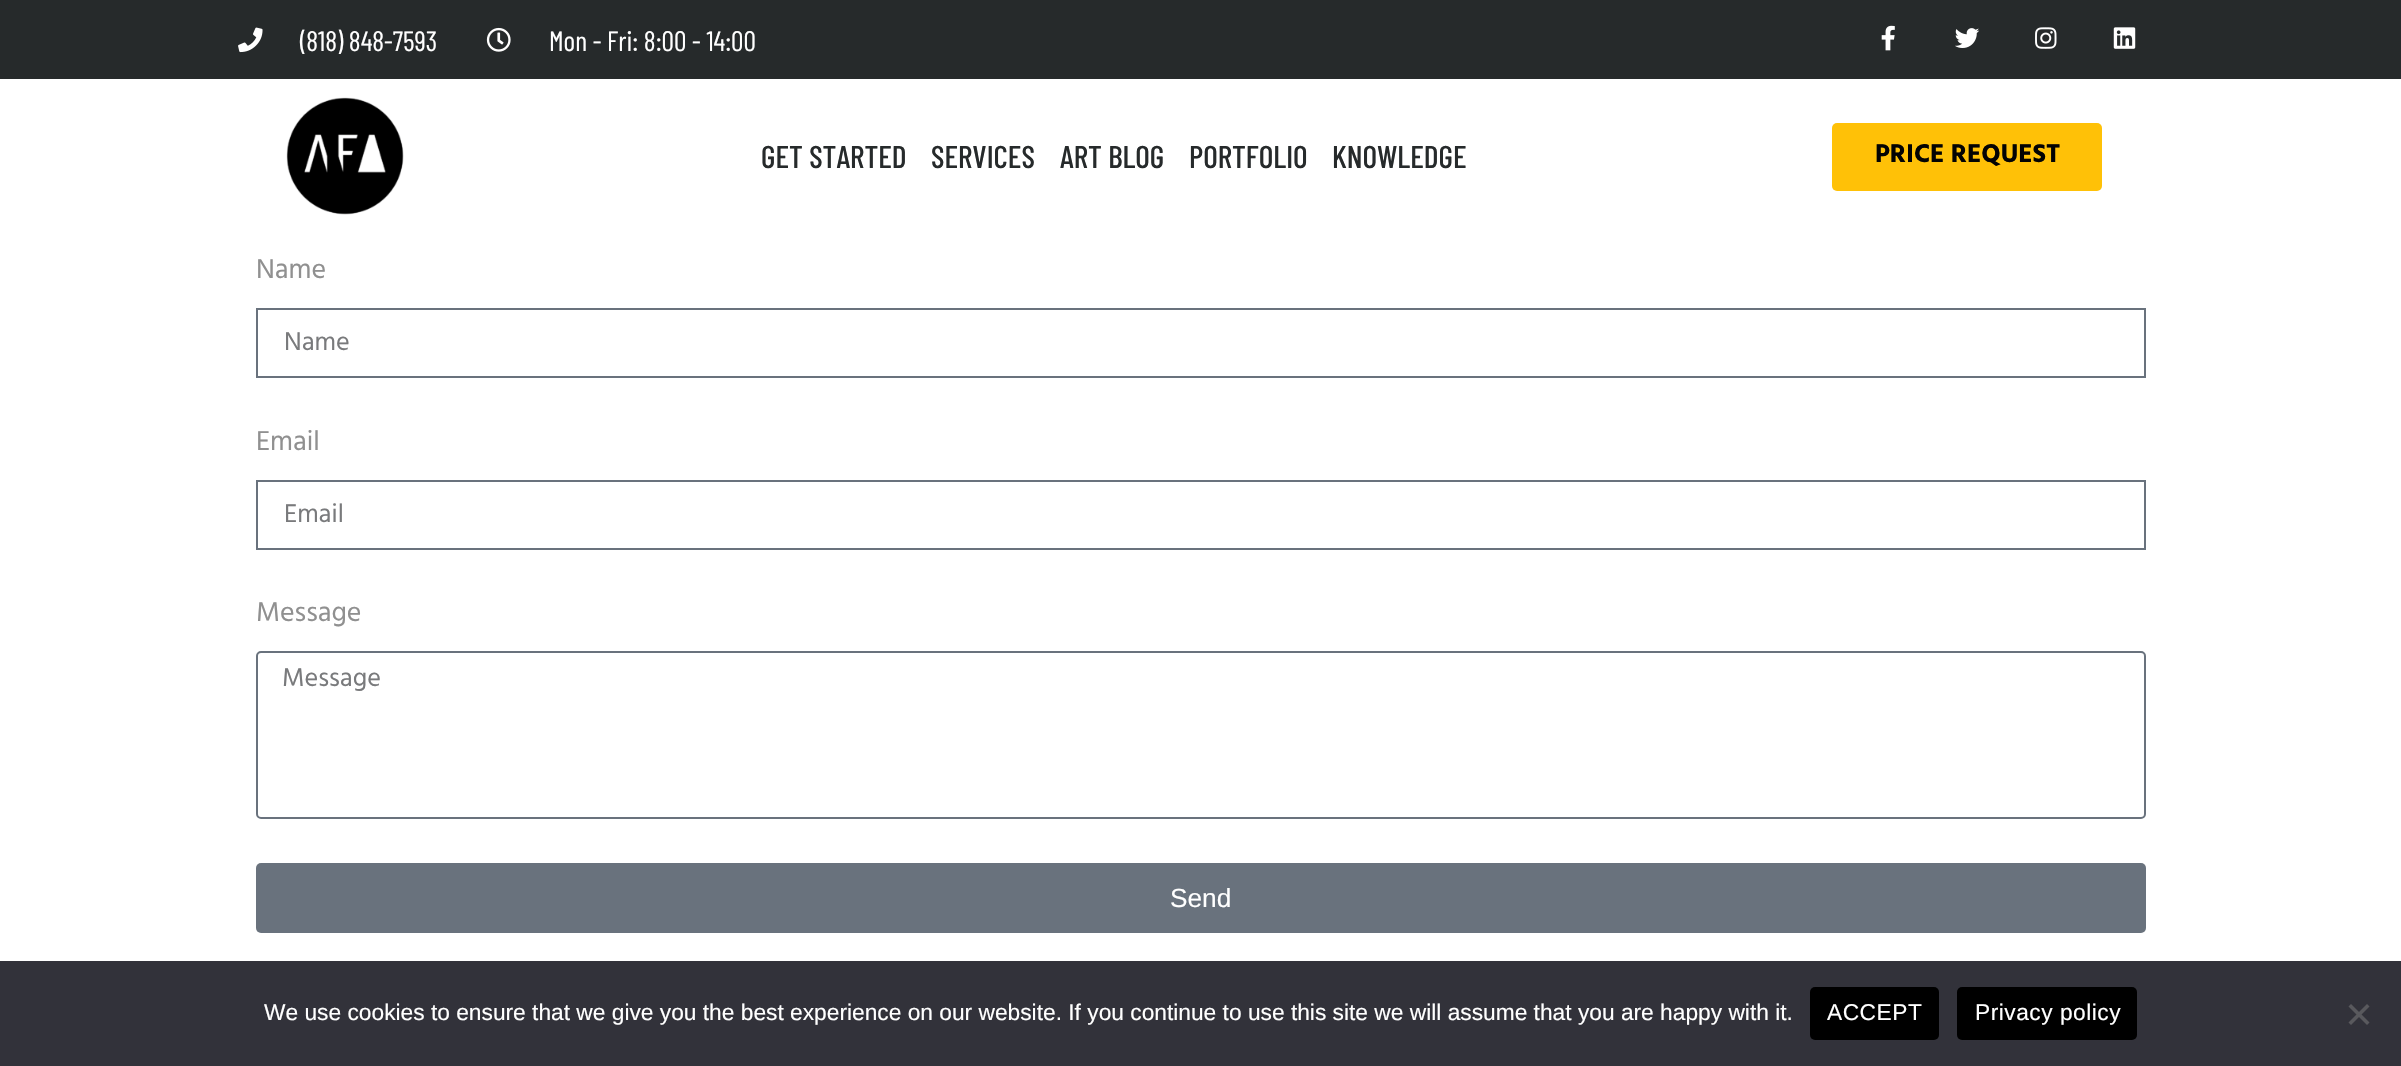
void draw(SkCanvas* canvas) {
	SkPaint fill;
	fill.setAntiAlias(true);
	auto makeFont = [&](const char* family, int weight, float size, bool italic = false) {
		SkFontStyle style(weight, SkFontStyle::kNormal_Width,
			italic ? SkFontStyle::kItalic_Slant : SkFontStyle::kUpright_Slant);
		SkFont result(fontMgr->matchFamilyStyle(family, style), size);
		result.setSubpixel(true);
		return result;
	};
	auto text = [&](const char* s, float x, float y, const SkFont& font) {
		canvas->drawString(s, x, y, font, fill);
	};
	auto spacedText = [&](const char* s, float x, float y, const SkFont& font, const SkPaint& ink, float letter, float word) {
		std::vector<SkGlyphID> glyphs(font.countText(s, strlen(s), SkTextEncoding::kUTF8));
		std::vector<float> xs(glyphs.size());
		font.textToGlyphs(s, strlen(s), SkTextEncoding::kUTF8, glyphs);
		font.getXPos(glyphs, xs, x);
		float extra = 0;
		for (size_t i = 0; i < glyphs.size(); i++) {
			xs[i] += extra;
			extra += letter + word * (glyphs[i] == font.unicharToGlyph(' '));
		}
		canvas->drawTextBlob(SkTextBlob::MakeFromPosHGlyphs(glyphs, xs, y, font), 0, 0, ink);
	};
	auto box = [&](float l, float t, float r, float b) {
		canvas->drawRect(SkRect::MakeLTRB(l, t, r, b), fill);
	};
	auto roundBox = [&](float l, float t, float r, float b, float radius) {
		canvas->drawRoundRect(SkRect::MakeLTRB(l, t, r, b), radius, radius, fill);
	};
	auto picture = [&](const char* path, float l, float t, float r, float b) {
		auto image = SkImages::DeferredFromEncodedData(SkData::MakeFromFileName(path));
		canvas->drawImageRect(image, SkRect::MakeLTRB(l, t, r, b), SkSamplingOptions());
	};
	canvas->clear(0xFFFFFFFF);
	fill.setColor(0xFF262A2B);
	box(0, 0, 2401, 79);
	picture("image0.png", 238, 27, 263, 53);
	picture("image1.png", 486, 27, 511, 52);
	picture("image2.png", 1881, 25, 1895, 51);
	picture("image3.png", 1955, 28, 1980, 48);
	picture("image4.png", 2035, 27, 2057, 49);
	picture("image5.png", 2113, 27, 2136, 49);
	picture("image6.png", 286, 97, 404, 215);
	fill.setColor(0xFFFFC107);
	roundBox(1832, 123, 2102, 191, 5);
	fill.setStyle(SkPaint::kStroke_Style);
	fill.setStrokeWidth(2);
	fill.setColor(0xFF69727D);
	canvas->drawRect(SkRect::MakeLTRB(257, 309, 2145, 377), fill);
	canvas->drawRect(SkRect::MakeLTRB(257, 481, 2145, 549), fill);
	canvas->drawRoundRect(SkRect::MakeLTRB(257, 652, 2145, 818), 4, 4, fill);
	fill.setStyle(SkPaint::kFill_Style);
	roundBox(256, 863, 2146, 933, 5);
	fill.setColor(0xFF32323A);
	box(0, 961, 2401, 1066);
	fill.setColor(0xFF000000);
	roundBox(1810, 987, 1939, 1040, 5);
	roundBox(1957, 987, 2137, 1040, 5);
	fill.setColor(0xFF59595D);
	canvas->drawPath(SkPathBuilder().moveTo(2367, 1004).lineTo(2369.5f, 1006.5f).lineTo(2351, 1025).lineTo(2348.5f, 1022.5f).close().detach(), fill);
	canvas->drawPath(SkPathBuilder().moveTo(2348.5f, 1006.5f).lineTo(2351, 1004).lineTo(2369.5f, 1022.5f).lineTo(2367, 1025).close().detach(), fill);
	auto font1 = makeFont("Barlow Condensed", 400, 28);
	fill.setColor(0xFFFFFFFF);
	text("(818) 848-7593", 300, 51, font1);
	text("Mon - Fri: 8:00 - 14:00", 549, 51, font1);
	auto font2 = makeFont("Barlow Condensed", 500, 31.5f);
	fill.setColor(0xFF262A2B);
	text("GET STARTED", 761, 168, font2);
	text("SERVICES", 931, 168, font2);
	text("ART BLOG", 1060, 168, font2);
	text("PORTFOLIO", 1189, 168, font2);
	text("KNOWLEDGE", 1332, 168, font2);
	auto font3 = makeFont("Hind", 700, 26.25f);
	fill.setColor(0xFF030303);
	text("PRICE REQUEST", 1875, 162, font3);
	auto font4 = makeFont("Hind", 400, 28);
	fill.setColor(0xFF909090);
	text("Name", 256, 278, font4);
	auto font5 = makeFont("Hind", 400, 26.25f);
	fill.setColor(0xFF797A7C);
	text("Name", 284, 350, font5);
	fill.setColor(0xFF909090);
	text("Email", 256, 450, font4);
	fill.setColor(0xFF797A7C);
	text("Email", 284, 522, font5);
	fill.setColor(0xFF909090);
	text("Message", 256, 621, font4);
	fill.setColor(0xFF797A7C);
	text("Message", 282, 686, font5);
	auto font6 = makeFont("Liberation Sans", 400, 26.25f);
	fill.setColor(0xFFFFFFFF);
	text("Send", 1170, 907, font6);
	auto font7 = makeFont("Liberation Sans", 400, 22.75f);
	text("We use cookies to ensure that we give you the best experience on our website. If you continue to use this site we will assume that you are happy with it.", 264, 1020, font7);
	spacedText("ACCEPT", 1827, 1020, font7, fill, 0.5f, 0);
	spacedText("Privacy policy", 1975, 1020, font7, fill, 0.5f, 0);
}
